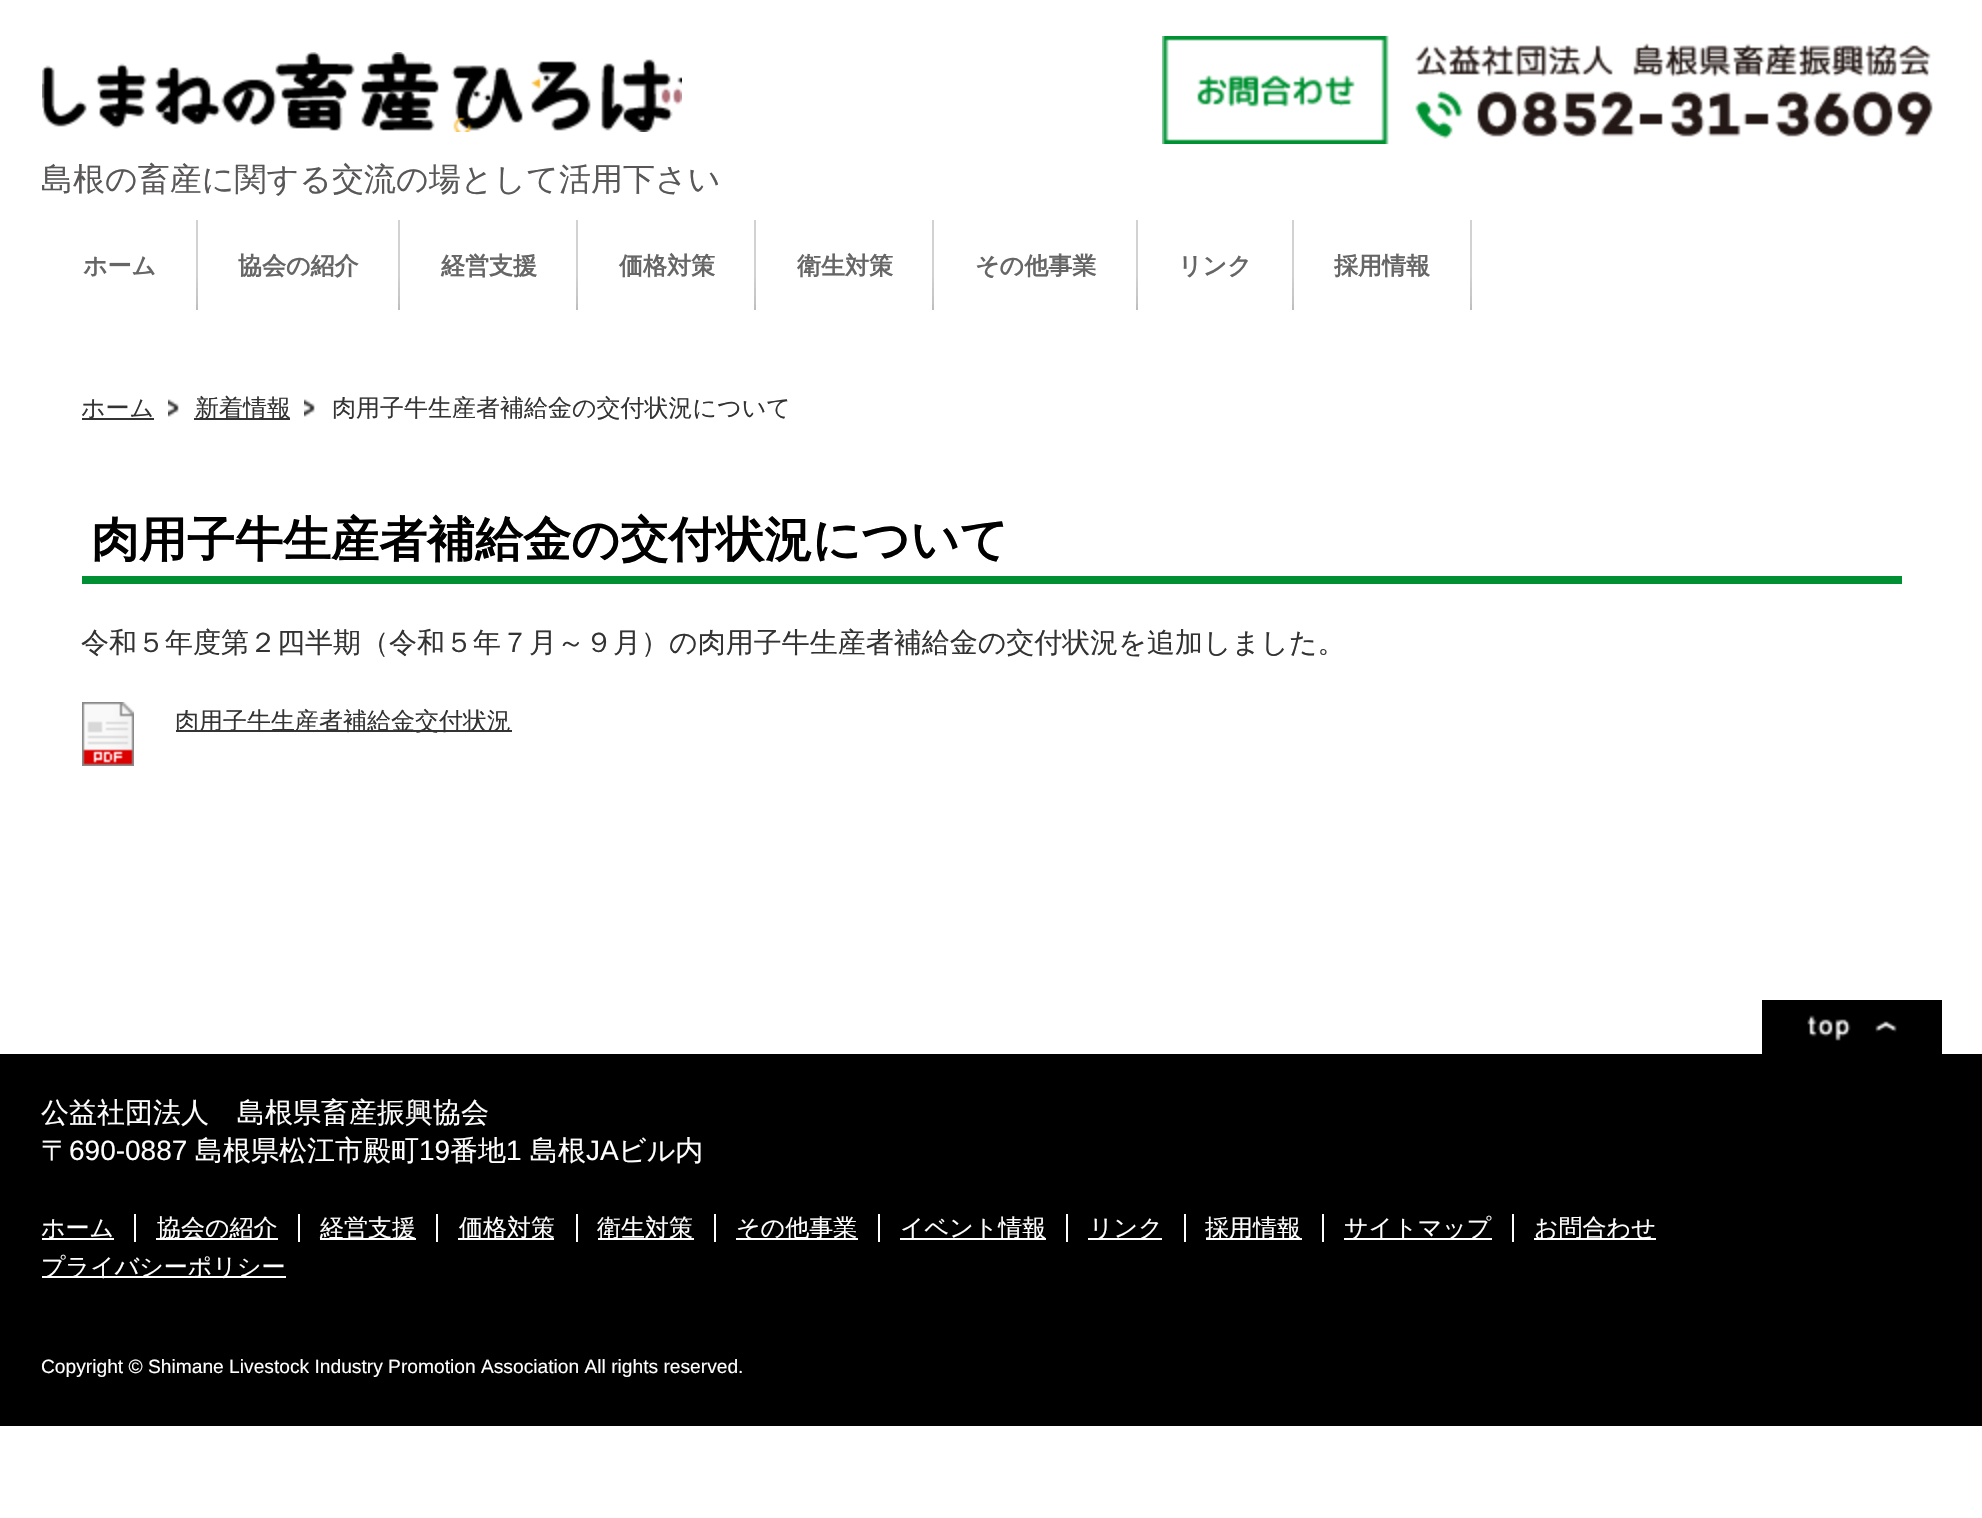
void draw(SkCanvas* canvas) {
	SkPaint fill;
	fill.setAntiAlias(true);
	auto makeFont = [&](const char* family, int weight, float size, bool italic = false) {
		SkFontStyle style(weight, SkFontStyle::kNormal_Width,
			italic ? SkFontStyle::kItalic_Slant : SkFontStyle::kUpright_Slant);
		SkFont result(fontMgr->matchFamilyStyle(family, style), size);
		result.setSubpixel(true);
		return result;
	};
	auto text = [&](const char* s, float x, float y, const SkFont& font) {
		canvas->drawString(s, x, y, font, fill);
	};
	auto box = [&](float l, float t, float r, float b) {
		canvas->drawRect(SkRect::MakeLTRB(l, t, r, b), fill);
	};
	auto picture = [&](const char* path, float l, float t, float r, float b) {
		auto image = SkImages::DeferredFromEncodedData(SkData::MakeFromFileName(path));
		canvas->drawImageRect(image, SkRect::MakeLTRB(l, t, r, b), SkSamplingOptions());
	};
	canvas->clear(0xFFFFFFFF);
	picture("image0.png", 42, 52, 682, 132);
	picture("image1.png", 1162, 36, 1933, 144);
	picture("image2.png", 196, 220, 198, 310);
	picture("image2.png", 398, 220, 400, 310);
	picture("image2.png", 576, 220, 578, 310);
	picture("image2.png", 754, 220, 756, 310);
	picture("image2.png", 932, 220, 934, 310);
	picture("image2.png", 1136, 220, 1138, 310);
	picture("image2.png", 1292, 220, 1294, 310);
	picture("image2.png", 1470, 220, 1472, 310);
	fill.setColor(0xFF333333);
	box(82, 418, 154, 420);
	picture("image3.png", 168, 399, 179, 417);
	box(194, 418, 290, 420);
	picture("image3.png", 304, 399, 315, 417);
	fill.setColor(0xFF009033);
	box(82, 576, 1902, 584);
	picture("image4.png", 82, 702, 134, 766);
	fill.setColor(0xFF333333);
	box(176, 730, 512, 732);
	picture("image5.png", 1762, 1000, 1942, 1054);
	fill.setColor(0xFF000000);
	box(0, 1054, 1982, 1426);
	fill.setColor(0xFFFFFFFF);
	box(42, 1238, 114, 1240);
	box(134, 1214, 136, 1242);
	box(156, 1238, 278, 1240);
	box(298, 1214, 300, 1242);
	box(320, 1238, 416, 1240);
	box(436, 1214, 438, 1242);
	box(458, 1238, 554, 1240);
	box(576, 1214, 578, 1242);
	box(598, 1238, 694, 1240);
	box(714, 1214, 716, 1242);
	box(736, 1238, 858, 1240);
	box(878, 1214, 880, 1242);
	box(900, 1238, 1046, 1240);
	box(1066, 1214, 1068, 1242);
	box(1088, 1238, 1162, 1240);
	box(1184, 1214, 1186, 1242);
	box(1206, 1238, 1302, 1240);
	box(1322, 1214, 1324, 1242);
	box(1344, 1238, 1492, 1240);
	box(1512, 1214, 1514, 1242);
	box(1534, 1238, 1656, 1240);
	box(42, 1276, 286, 1278);
	auto font1 = makeFont("WenQuanYi Zen Hei", 500, 32);
	fill.setColor(0xFF595757);
	text("島根の畜産に関する交流の場として活用下さい", 41, 190, font1);
	auto font2 = makeFont("WenQuanYi Zen Hei", 700, 24);
	fill.setColor(0xFF666666);
	text("ホーム", 83, 274, font2);
	text("協会の紹介", 238, 274, font2);
	text("経営支援", 441, 274, font2);
	text("価格対策", 619, 274, font2);
	text("衛生対策", 797, 274, font2);
	text("その他事業", 975, 274, font2);
	text("リンク", 1178, 274, font2);
	text("採用情報", 1334, 274, font2);
	auto font3 = makeFont("WenQuanYi Zen Hei", 500, 24);
	fill.setColor(0xFF333333);
	text("ホーム", 81, 416, font3);
	text("新着情報", 195, 416, font3);
	text("肉用子牛生産者補給金の交付状況について", 332, 416, font3);
	auto font4 = makeFont("WenQuanYi Zen Hei", 700, 48);
	fill.setColor(0xFF000000);
	text("肉用子牛生産者補給金の交付状況について", 91, 556, font4);
	auto font5 = makeFont("WenQuanYi Zen Hei", 500, 28);
	fill.setColor(0xFF333333);
	text("令和５年度第２四半期（令和５年７月～９月）の肉用子牛生産者補給金の交付状況を追加しました。", 81, 652, font5);
	text("肉用子牛生産者補給金交付状況", 175, 729, font3);
	fill.setColor(0xFFFFFFFF);
	text("公益社団法人　島根県畜産振興協会", 41, 1122, font5);
	text("〒", 41, 1160, font5);
	auto font6 = makeFont("Liberation Sans", 400, 28);
	text("690-0887", 69, 1160, font6);
	text("島根県松江市殿町", 195, 1160, font5);
	text("19", 419, 1160, font6);
	text("番地", 450, 1160, font5);
	text("1", 506, 1160, font6);
	text("島根", 530, 1160, font5);
	text("JA", 586, 1160, font6);
	text("ビル内", 618, 1160, font5);
	text("ホーム", 41, 1236, font3);
	text("協会の紹介", 157, 1236, font3);
	text("経営支援", 320, 1236, font3);
	text("価格対策", 459, 1236, font3);
	text("衛生対策", 597, 1236, font3);
	text("その他事業", 736, 1236, font3);
	text("イベント情報", 900, 1236, font3);
	text("リンク", 1089, 1236, font3);
	text("採用情報", 1205, 1236, font3);
	text("サイトマップ", 1344, 1236, font3);
	text("お問合わせ", 1534, 1236, font3);
	text("プライバシーポリシー", 41, 1275, font3);
	auto font7 = makeFont("Liberation Sans", 400, 19.2f);
	text("Copyright © Shimane Livestock Industry Promotion Association All rights reserved.", 41, 1373, font7);
}
